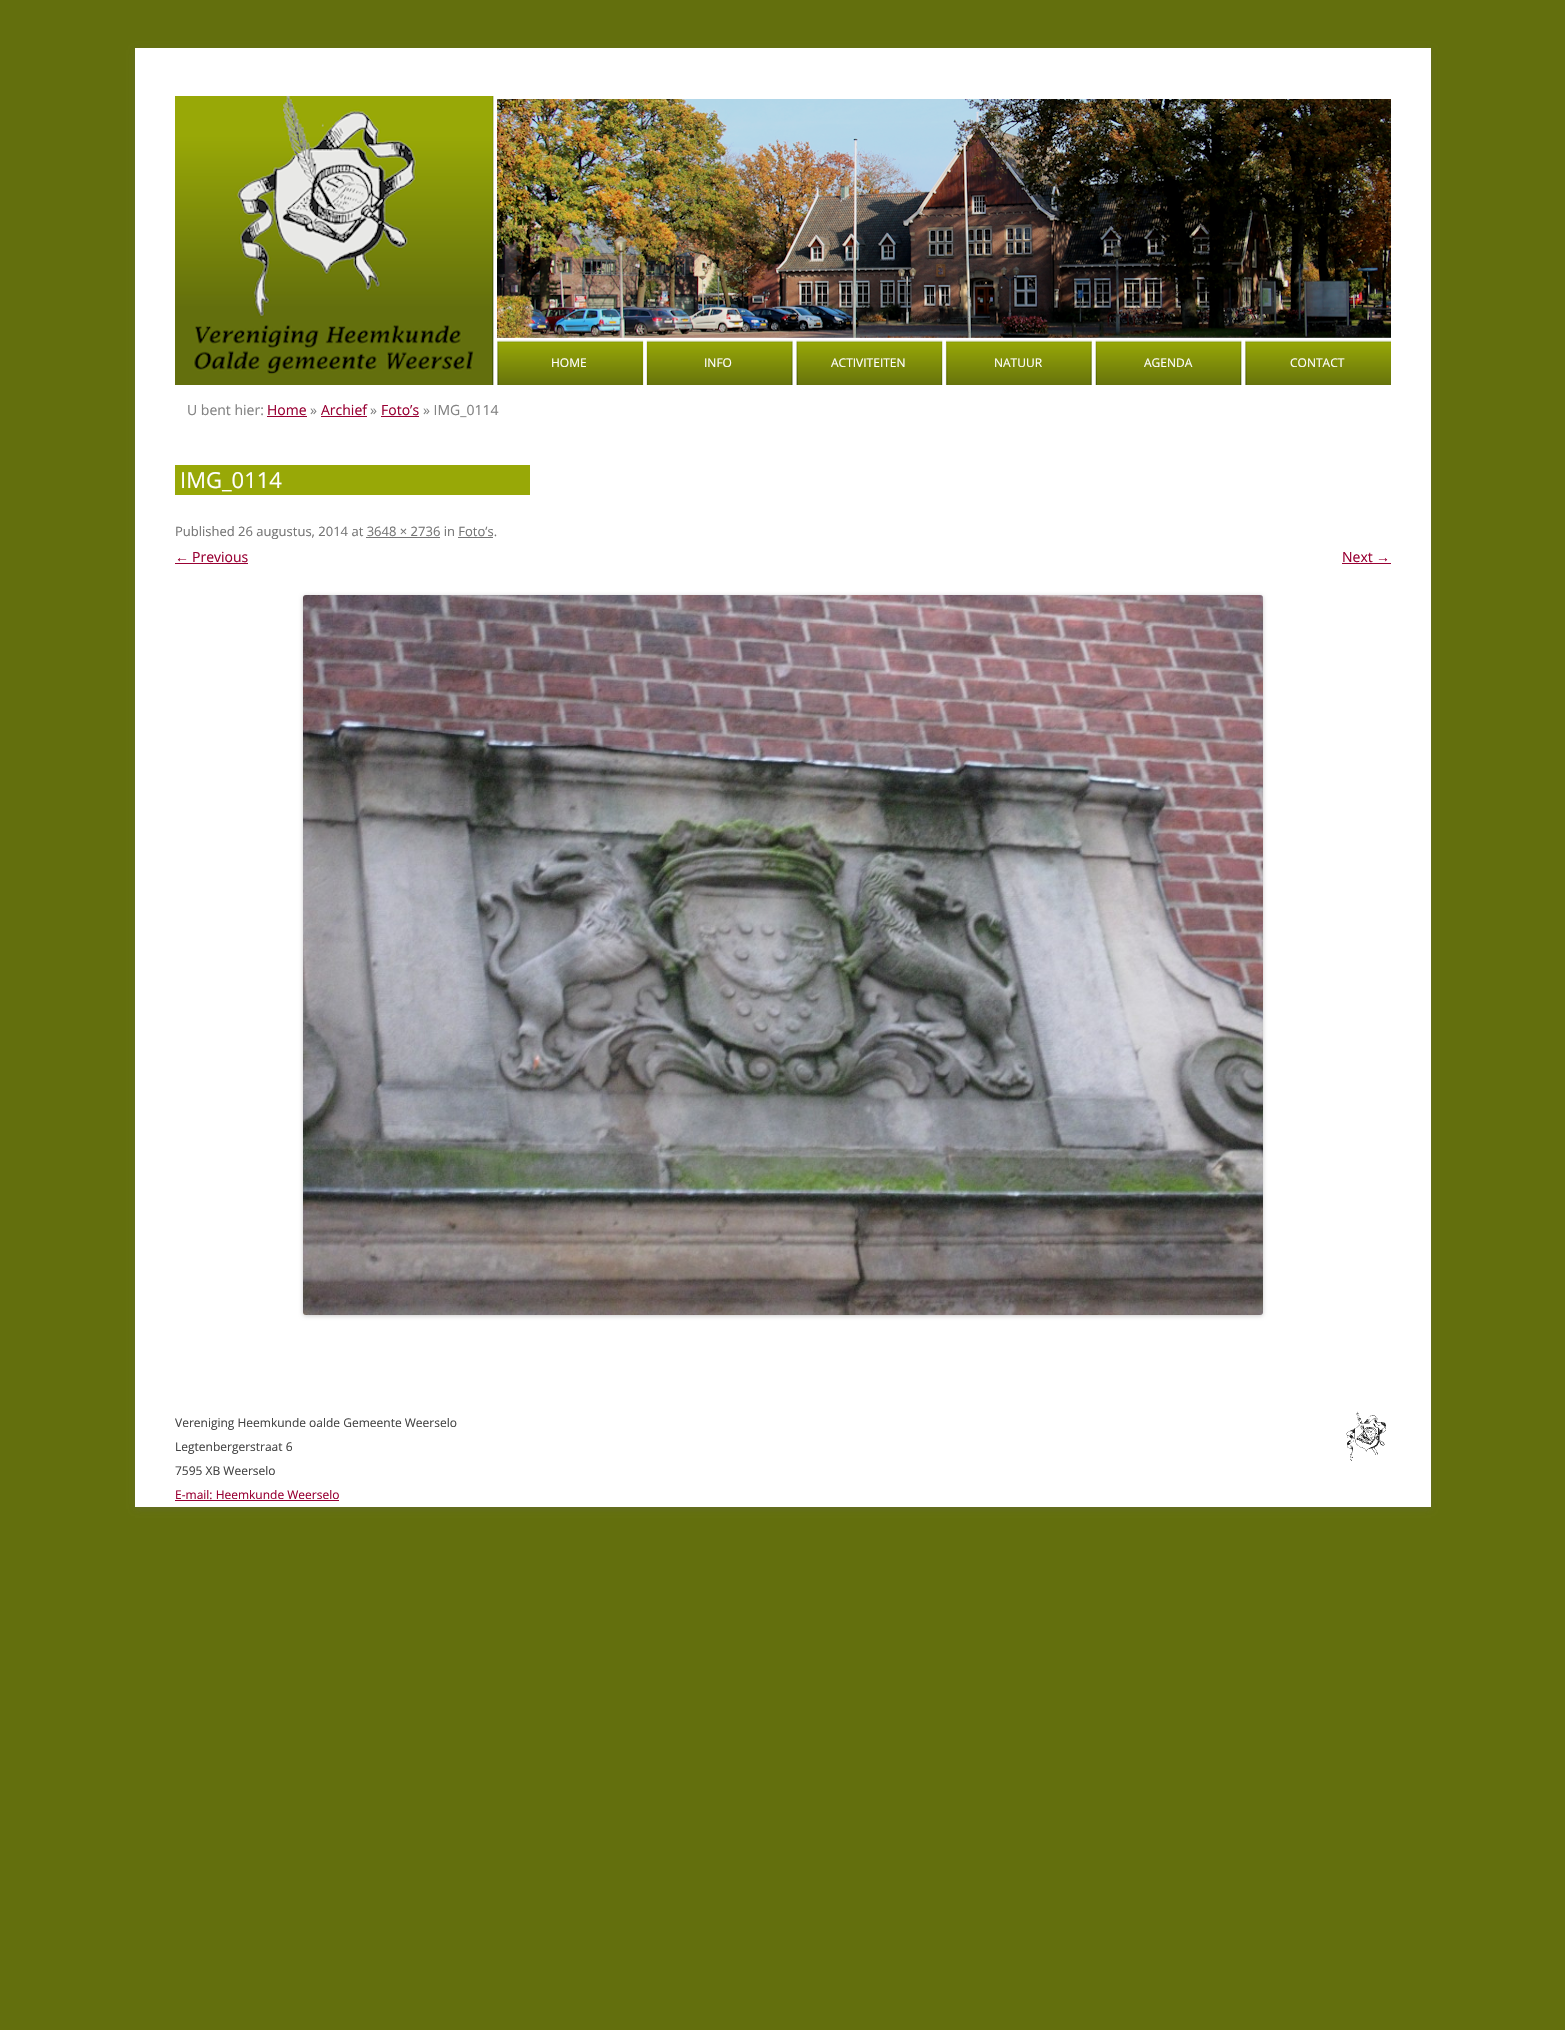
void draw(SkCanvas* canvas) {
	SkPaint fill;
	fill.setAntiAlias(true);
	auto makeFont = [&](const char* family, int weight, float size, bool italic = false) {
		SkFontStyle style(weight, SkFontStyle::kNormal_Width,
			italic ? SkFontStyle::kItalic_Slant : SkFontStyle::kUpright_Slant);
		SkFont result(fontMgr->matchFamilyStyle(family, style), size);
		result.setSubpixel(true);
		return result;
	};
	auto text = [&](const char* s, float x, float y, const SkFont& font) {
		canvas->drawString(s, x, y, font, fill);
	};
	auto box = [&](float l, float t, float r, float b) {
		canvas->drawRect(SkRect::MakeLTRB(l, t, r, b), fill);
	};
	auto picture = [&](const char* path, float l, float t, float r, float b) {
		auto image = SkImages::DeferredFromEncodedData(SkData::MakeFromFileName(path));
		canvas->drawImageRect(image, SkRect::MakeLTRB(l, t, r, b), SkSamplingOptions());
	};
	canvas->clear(0xFF636F0D);
	fill.setColor(0x4D646464);
	fill.setMaskFilter(SkMaskFilter::MakeBlur(kNormal_SkBlurStyle, 3));
	canvas->drawRect(SkRect::MakeLTRB(135, 50, 1431, 1509), fill);
	fill.setMaskFilter(nullptr);
	fill.setColor(0xFFFFFFFF);
	box(135, 48, 1431, 1507);
	picture("image0.png", 175, 96, 1391, 385);
	fill.setColor(0xFF990134);
	box(267, 416, 307, 417);
	box(321, 416, 367, 417);
	box(381, 416, 419, 417);
	fill.setColor(0xFF98A807);
	box(175, 465, 530, 495);
	fill.setColor(0xFF757575);
	box(366, 537, 440, 538);
	box(458, 537, 493, 538);
	fill.setColor(0xFF990134);
	box(175, 563, 248, 564);
	box(1342, 563, 1391, 564);
	fill.setColor(0x33000000);
	fill.setMaskFilter(SkMaskFilter::MakeBlur(kNormal_SkBlurStyle, 2));
	canvas->drawRoundRect(SkRect::MakeLTRB(303, 596, 1263, 1316), 3, 3, fill);
	fill.setMaskFilter(nullptr);
	picture("image1.png", 303, 595, 1263, 1315);
	fill.setColor(0xFF990033);
	box(175, 1500, 339, 1501);
	picture("image2.png", 1346, 1411, 1386, 1461);
	auto font1 = makeFont("Open Sans", 400, 12);
	fill.setColor(0xFFFFFFFF);
	text("HOME", 551, 367, font1);
	text("INFO", 704, 367, font1);
	text("ACTIVITEITEN", 831, 367, font1);
	text("NATUUR", 994, 367, font1);
	text("AGENDA", 1144, 367, font1);
	text("CONTACT", 1290, 367, font1);
	auto font2 = makeFont("Open Sans", 400, 14);
	fill.setColor(0xFF828282);
	text("U bent hier:", 187, 415, font2);
	fill.setColor(0xFF990033);
	text("Home", 267, 415, font2);
	fill.setColor(0xFF828282);
	text("»", 310, 415, font2);
	fill.setColor(0xFF990033);
	text("Archief", 321, 415, font2);
	fill.setColor(0xFF828282);
	text("»", 370, 415, font2);
	fill.setColor(0xFF990033);
	text("Foto’s", 381, 415, font2);
	fill.setColor(0xFF828282);
	text("» IMG_0114", 423, 415, font2);
	auto font3 = makeFont("Open Sans", 400, 22);
	fill.setColor(0xFFFFFFFF);
	text("IMG_0114", 180, 488, font3);
	auto font4 = makeFont("Open Sans", 400, 13);
	fill.setColor(0xFF757575);
	text("Published 26 augustus, 2014 at 3648 × 2736 in Foto’s.", 175, 536, font4);
	auto font5 = makeFont("Liberation Sans", 400, 14);
	fill.setColor(0xFF990033);
	text("←", 175, 562, font5);
	text("Previous", 192, 562, font2);
	text("Next", 1342, 562, font2);
	text("→", 1376, 562, font5);
	fill.setColor(0xFF444444);
	text("Vereniging Heemkunde oalde Gemeente Weerselo", 175, 1427, font1);
	text("Legtenbergerstraat 6", 175, 1451, font1);
	text("7595 XB Weerselo", 175, 1475, font1);
	fill.setColor(0xFF990033);
	text("E-mail: Heemkunde Weerselo", 175, 1499, font1);
}
